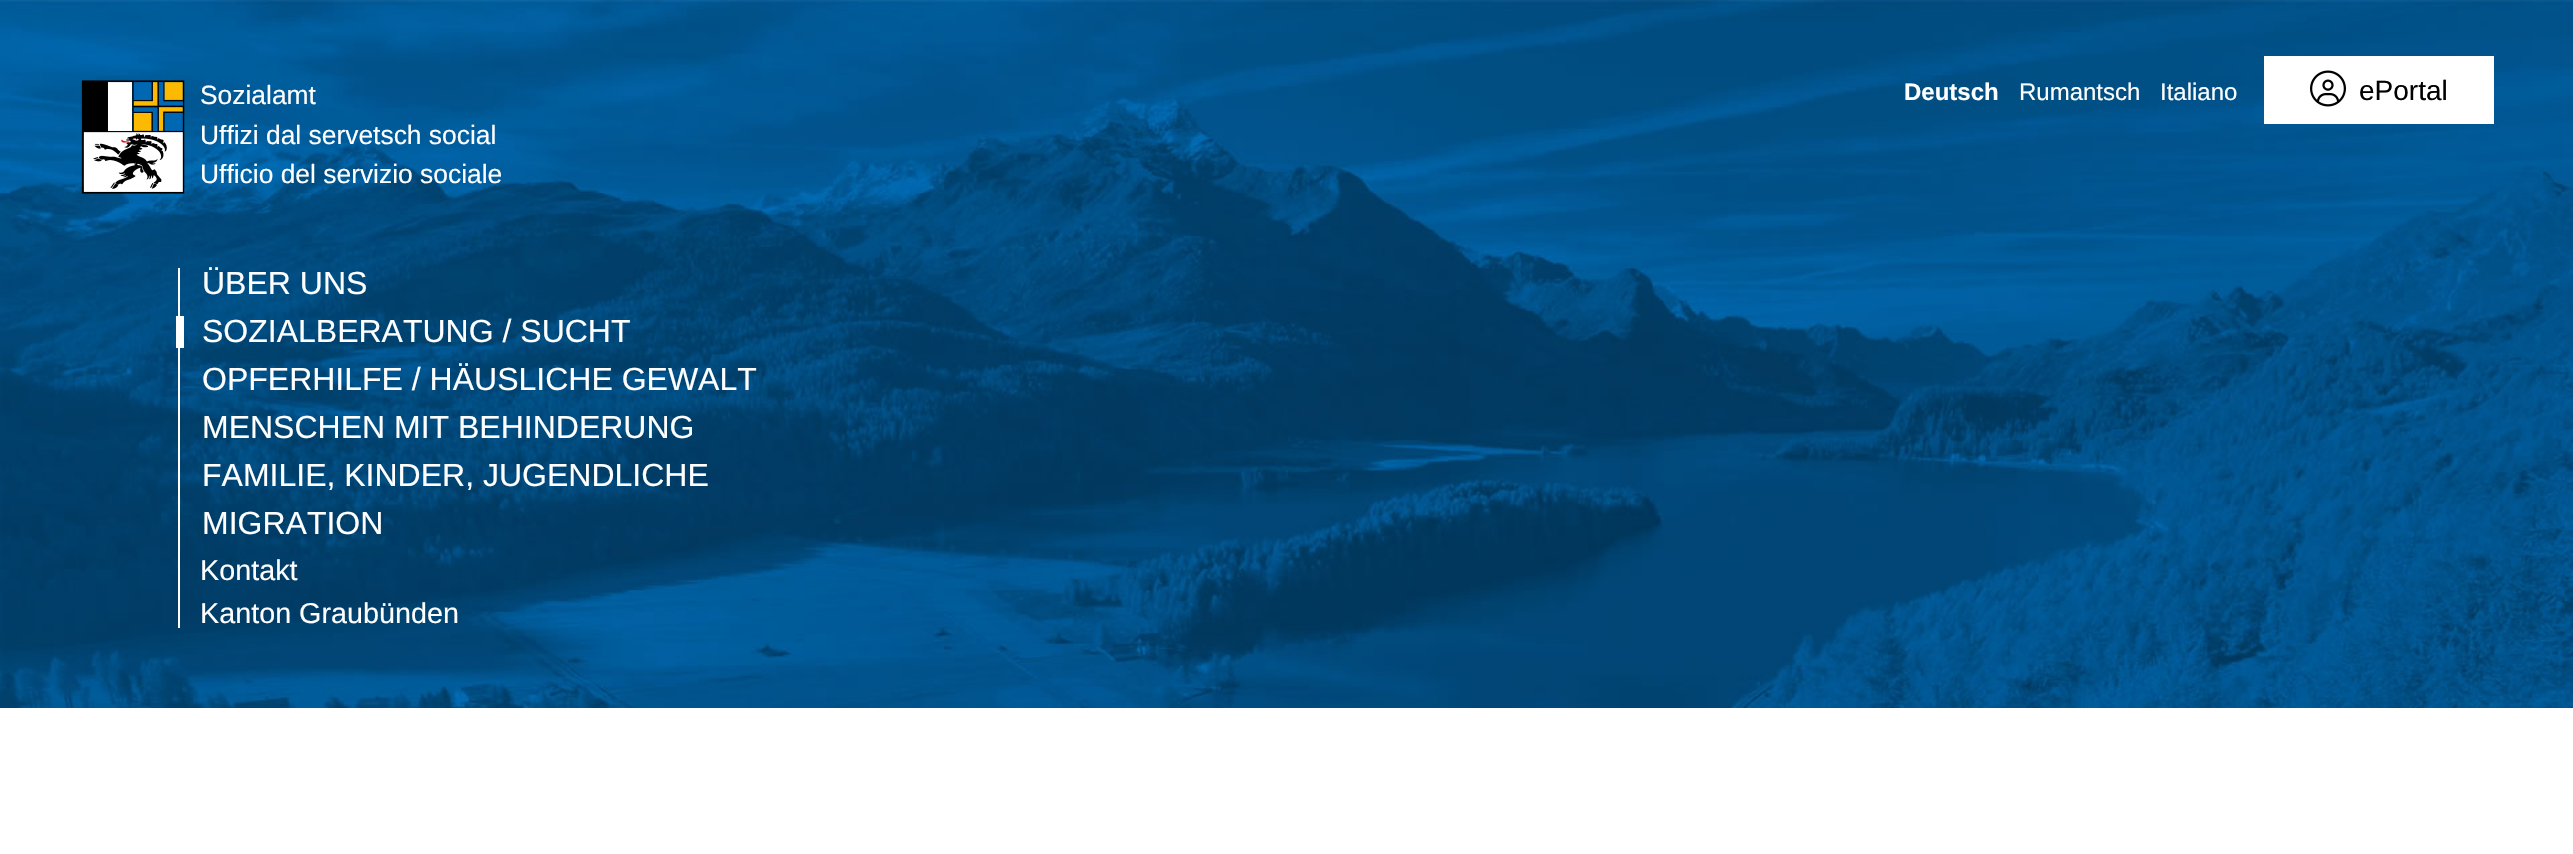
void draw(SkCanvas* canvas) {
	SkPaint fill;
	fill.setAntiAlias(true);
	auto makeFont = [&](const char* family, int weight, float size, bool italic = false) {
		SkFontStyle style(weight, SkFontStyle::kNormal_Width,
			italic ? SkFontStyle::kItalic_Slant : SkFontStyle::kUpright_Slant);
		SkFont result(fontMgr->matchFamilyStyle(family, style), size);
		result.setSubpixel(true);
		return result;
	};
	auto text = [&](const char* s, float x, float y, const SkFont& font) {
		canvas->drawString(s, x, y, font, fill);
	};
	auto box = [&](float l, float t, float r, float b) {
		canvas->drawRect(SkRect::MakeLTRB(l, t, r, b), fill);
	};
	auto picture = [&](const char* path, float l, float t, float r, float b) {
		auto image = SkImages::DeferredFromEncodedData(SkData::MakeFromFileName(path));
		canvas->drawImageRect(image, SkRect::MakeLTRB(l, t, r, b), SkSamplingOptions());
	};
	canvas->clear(0xFFFFFFFF);
	picture("image0.png", 0, 0, 2573, 708);
	picture("image1.png", 81, 80, 185, 194);
	fill.setColor(0xFFFFFFFF);
	box(2264, 56, 2494, 124);
	picture("image2.png", 2310, 70, 2346, 107);
	box(178, 268, 180, 628);
	box(176, 316, 184, 348);
	auto font1 = makeFont("Liberation Sans", 400, 26.4f);
	text("Sozialamt", 200, 104, font1);
	text("Uffizi dal servetsch social", 200, 144, font1);
	text("Ufficio del servizio sociale", 200, 183, font1);
	auto font2 = makeFont("Liberation Sans", 700, 24);
	text("Deutsch", 1904, 100, font2);
	auto font3 = makeFont("Liberation Sans", 400, 24);
	text("Rumantsch", 2019, 100, font3);
	text("Italiano", 2160, 100, font3);
	auto font4 = makeFont("Liberation Sans", 400, 28);
	fill.setColor(0xFF000000);
	text("ePortal", 2359, 100, font4);
	auto font5 = makeFont("Liberation Sans", 400, 32);
	fill.setColor(0xFFFFFFFF);
	text("ÜBER UNS", 202, 294, font5);
	text("SOZIALBERATUNG / SUCHT", 202, 342, font5);
	text("OPFERHILFE / HÄUSLICHE GEWALT", 202, 390, font5);
	text("MENSCHEN MIT BEHINDERUNG", 202, 438, font5);
	text("FAMILIE, KINDER, JUGENDLICHE", 202, 486, font5);
	text("MIGRATION", 202, 534, font5);
	auto font6 = makeFont("Liberation Sans", 400, 28.75f);
	text("Kontakt", 200, 580, font6);
	text("Kanton Graubünden", 200, 623, font6);
}
